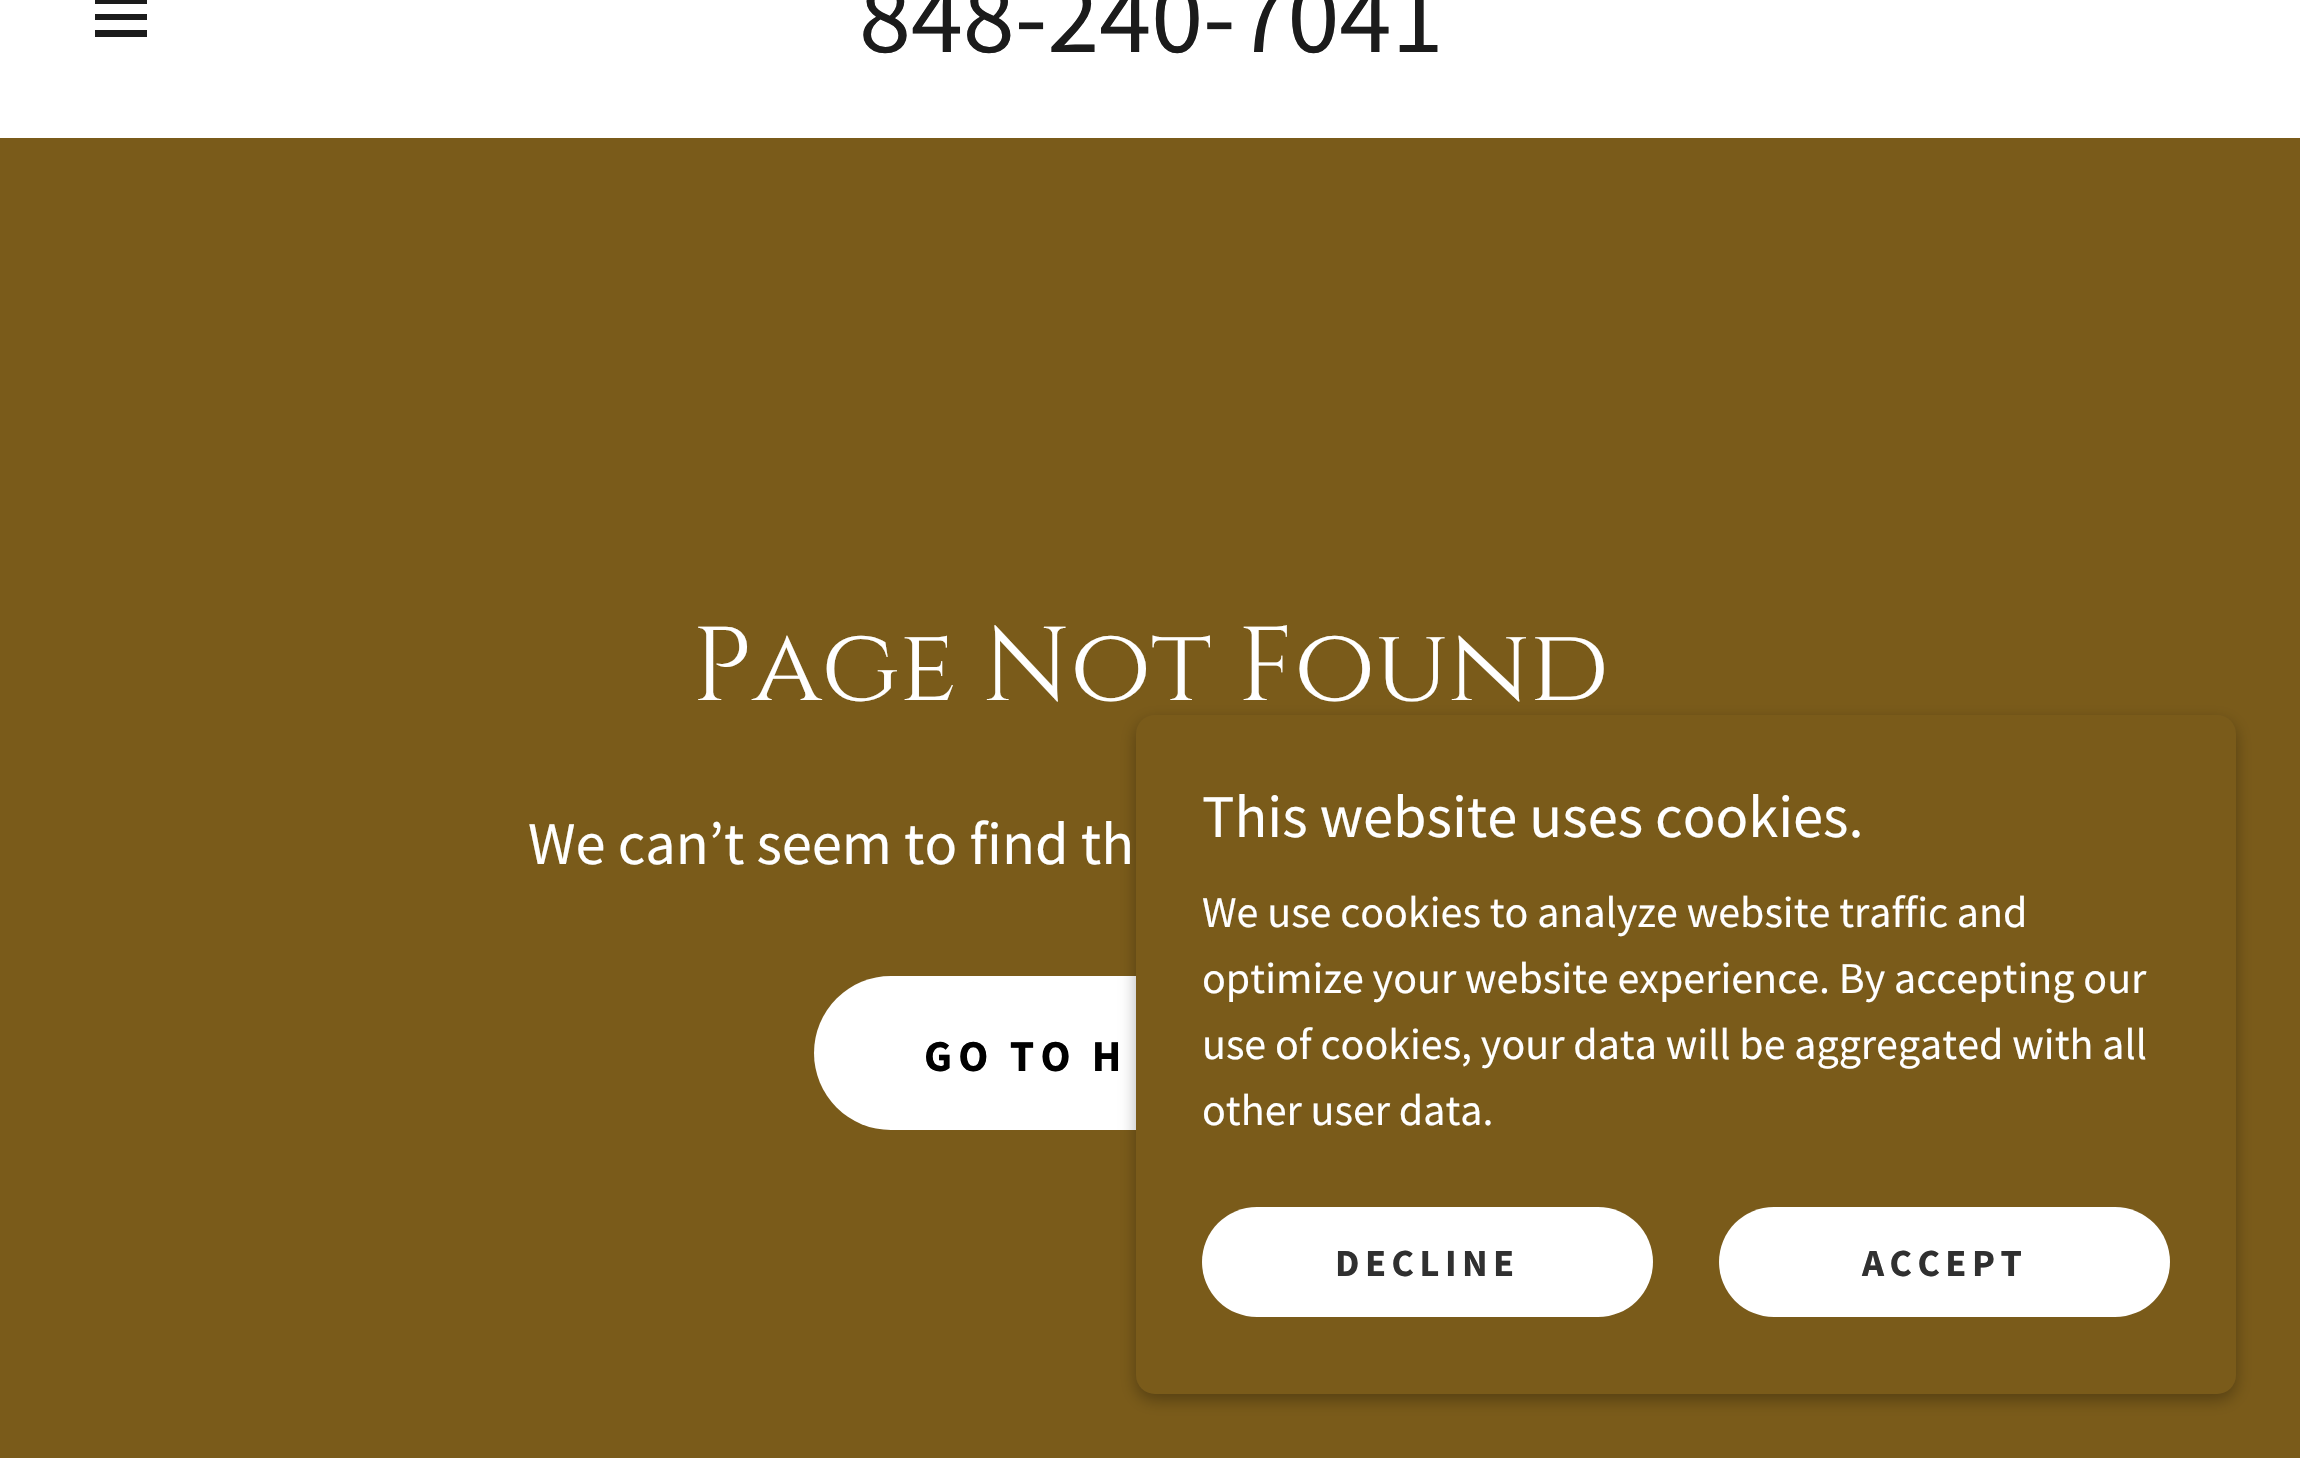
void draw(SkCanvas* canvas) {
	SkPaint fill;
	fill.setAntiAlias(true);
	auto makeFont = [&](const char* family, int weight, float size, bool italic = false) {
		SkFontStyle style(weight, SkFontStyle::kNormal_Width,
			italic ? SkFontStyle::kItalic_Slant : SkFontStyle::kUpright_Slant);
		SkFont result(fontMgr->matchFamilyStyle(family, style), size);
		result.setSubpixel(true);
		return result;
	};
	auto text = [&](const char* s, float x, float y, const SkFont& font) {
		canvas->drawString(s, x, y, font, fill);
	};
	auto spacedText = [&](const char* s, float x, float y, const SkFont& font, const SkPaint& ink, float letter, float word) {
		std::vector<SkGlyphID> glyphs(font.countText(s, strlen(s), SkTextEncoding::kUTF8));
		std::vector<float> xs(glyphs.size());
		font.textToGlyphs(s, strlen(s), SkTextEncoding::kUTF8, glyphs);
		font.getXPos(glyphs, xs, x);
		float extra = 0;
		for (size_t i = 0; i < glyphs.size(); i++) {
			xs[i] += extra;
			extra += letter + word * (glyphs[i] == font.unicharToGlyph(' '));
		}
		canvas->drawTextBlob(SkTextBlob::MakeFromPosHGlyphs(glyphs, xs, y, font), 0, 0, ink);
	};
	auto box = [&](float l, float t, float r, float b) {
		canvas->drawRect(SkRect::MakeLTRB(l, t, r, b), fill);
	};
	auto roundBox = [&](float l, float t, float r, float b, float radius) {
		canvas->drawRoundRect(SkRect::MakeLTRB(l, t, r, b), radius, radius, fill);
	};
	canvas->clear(0xFFFFFFFF);
	fill.setColor(0xFF1B1B1B);
	box(95, 0, 147, 4);
	box(95, 14, 147, 20);
	box(95, 30, 147, 37);
	fill.setColor(0xFF7A5B1A);
	box(0, 138, 2300, 1458);
	fill.setColor(0xFFFFFFFF);
	roundBox(814, 976, 1488, 1130, 77);
	fill.setColor(0x4D000000);
	fill.setMaskFilter(SkMaskFilter::MakeBlur(kNormal_SkBlurStyle, 8));
	canvas->drawRoundRect(SkRect::MakeLTRB(1136, 721, 2236, 1400), 19, 19, fill);
	fill.setMaskFilter(nullptr);
	fill.setColor(0xFF7A5B1A);
	roundBox(1136, 715, 2236, 1394, 19);
	fill.setColor(0xFFFFFFFF);
	roundBox(1202, 1207, 1653, 1317, 55);
	roundBox(1719, 1207, 2170, 1317, 55);
	auto font1 = makeFont("Source Sans Pro", 400, 104.5f);
	fill.setColor(0xFF1B1B1B);
	text("848-240-7041", 859, 52, font1);
	auto font2 = makeFont("Cinzel", 400, 104.5f);
	fill.setColor(0xFFFFFFFF);
	text("Page Not Found", 692, 700, font2);
	auto font3 = makeFont("Source Sans Pro", 400, 60.5f);
	text("We can’t seem to find th", 528, 864, font3);
	auto font4 = makeFont("Source Sans Pro", 700, 44);
	fill.setColor(0xFF000000);
	spacedText("GO TO H", 924, 1071, font4, fill, 6.25f, 0);
	fill.setColor(0xFFFFFFFF);
	text("This website uses cookies.", 1202, 837, font3);
	auto font5 = makeFont("Source Sans Pro", 400, 44);
	text("We use cookies to analyze website traffic and", 1202, 927, font5);
	text("optimize your website experience. By accepting our", 1202, 993, font5);
	text("use of cookies, your data will be aggregated with all", 1202, 1059, font5);
	text("other user data.", 1202, 1125, font5);
	auto font6 = makeFont("Source Sans Pro", 700, 38.5f);
	fill.setColor(0xFF303030);
	spacedText("DECLINE", 1335, 1276, font6, fill, 5.5f, 0);
	spacedText("ACCEPT", 1862, 1276, font6, fill, 5.5f, 0);
}
